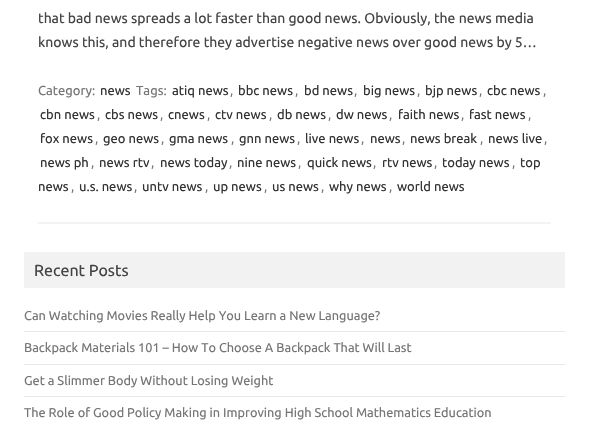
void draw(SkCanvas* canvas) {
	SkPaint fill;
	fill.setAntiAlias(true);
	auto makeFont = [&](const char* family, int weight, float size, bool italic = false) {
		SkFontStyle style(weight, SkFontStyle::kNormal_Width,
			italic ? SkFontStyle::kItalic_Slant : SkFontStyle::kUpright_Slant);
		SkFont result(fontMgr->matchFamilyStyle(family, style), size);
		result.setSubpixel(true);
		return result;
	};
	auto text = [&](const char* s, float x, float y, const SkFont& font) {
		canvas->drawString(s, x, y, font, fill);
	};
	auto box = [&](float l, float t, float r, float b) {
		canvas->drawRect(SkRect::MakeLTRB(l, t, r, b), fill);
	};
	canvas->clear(0xFFFFFFFF);
	fill.setColor(0xFFF3F3F3);
	box(38, 222, 551, 224);
	fill.setColor(0xFFF2F2F2);
	box(24, 252, 565, 288);
	fill.setColor(0xFFE9E9E9);
	box(24, 331, 565, 332);
	box(24, 364, 565, 365);
	box(24, 396, 565, 397);
	auto font1 = makeFont("Ubuntu", 400, 14);
	fill.setColor(0xFF444444);
	text("that bad news spreads a lot faster than good news. Obviously, the news media", 38, 23, font1);
	text("knows this, and therefore they advertise negative news over good news by 5…", 38, 47, font1);
	auto font2 = makeFont("Ubuntu", 400, 13);
	fill.setColor(0xFF757575);
	text("Category:", 38, 95, font2);
	fill.setColor(0xFF333333);
	text("news", 100, 95, font2);
	fill.setColor(0xFF757575);
	text("Tags:", 136, 95, font2);
	fill.setColor(0xFF333333);
	text("atiq news", 172, 95, font2);
	fill.setColor(0xFF757575);
	text(",", 230, 95, font2);
	fill.setColor(0xFF333333);
	text("bbc news", 238, 95, font2);
	fill.setColor(0xFF757575);
	text(",", 295, 95, font2);
	fill.setColor(0xFF333333);
	text("bd news", 304, 95, font2);
	fill.setColor(0xFF757575);
	text(",", 354, 95, font2);
	fill.setColor(0xFF333333);
	text("big news", 363, 95, font2);
	fill.setColor(0xFF757575);
	text(",", 417, 95, font2);
	fill.setColor(0xFF333333);
	text("bjp news", 425, 95, font2);
	fill.setColor(0xFF757575);
	text(",", 479, 95, font2);
	fill.setColor(0xFF333333);
	text("cbc news", 487, 95, font2);
	fill.setColor(0xFF757575);
	text(",", 543, 95, font2);
	fill.setColor(0xFF333333);
	text("cbn news", 40, 119, font2);
	fill.setColor(0xFF757575);
	text(",", 97, 119, font2);
	fill.setColor(0xFF333333);
	text("cbs news", 105, 119, font2);
	fill.setColor(0xFF757575);
	text(",", 160, 119, font2);
	fill.setColor(0xFF333333);
	text("cnews", 168, 119, font2);
	fill.setColor(0xFF757575);
	text(",", 207, 119, font2);
	fill.setColor(0xFF333333);
	text("ctv news", 215, 119, font2);
	fill.setColor(0xFF757575);
	text(",", 269, 119, font2);
	fill.setColor(0xFF333333);
	text("db news", 277, 119, font2);
	fill.setColor(0xFF757575);
	text(",", 328, 119, font2);
	fill.setColor(0xFF333333);
	text("dw news", 336, 119, font2);
	fill.setColor(0xFF757575);
	text(",", 389, 119, font2);
	fill.setColor(0xFF333333);
	text("faith news", 398, 119, font2);
	fill.setColor(0xFF757575);
	text(",", 461, 119, font2);
	fill.setColor(0xFF333333);
	text("fast news", 469, 119, font2);
	fill.setColor(0xFF757575);
	text(",", 528, 119, font2);
	fill.setColor(0xFF333333);
	text("fox news", 40, 143, font2);
	fill.setColor(0xFF757575);
	text(",", 95, 143, font2);
	fill.setColor(0xFF333333);
	text("geo news", 103, 143, font2);
	fill.setColor(0xFF757575);
	text(",", 161, 143, font2);
	fill.setColor(0xFF333333);
	text("gma news", 169, 143, font2);
	fill.setColor(0xFF757575);
	text(",", 231, 143, font2);
	fill.setColor(0xFF333333);
	text("gnn news", 239, 143, font2);
	fill.setColor(0xFF757575);
	text(",", 297, 143, font2);
	fill.setColor(0xFF333333);
	text("live news", 305, 143, font2);
	fill.setColor(0xFF757575);
	text(",", 361, 143, font2);
	fill.setColor(0xFF333333);
	text("news", 370, 143, font2);
	fill.setColor(0xFF757575);
	text(",", 402, 143, font2);
	fill.setColor(0xFF333333);
	text("news break", 410, 143, font2);
	fill.setColor(0xFF757575);
	text(",", 480, 143, font2);
	fill.setColor(0xFF333333);
	text("news live", 488, 143, font2);
	fill.setColor(0xFF757575);
	text(",", 544, 143, font2);
	fill.setColor(0xFF333333);
	text("news ph", 40, 167, font2);
	fill.setColor(0xFF757575);
	text(",", 91, 167, font2);
	fill.setColor(0xFF333333);
	text("news rtv", 99, 167, font2);
	fill.setColor(0xFF757575);
	text(",", 151, 167, font2);
	fill.setColor(0xFF333333);
	text("news today", 160, 167, font2);
	fill.setColor(0xFF757575);
	text(",", 229, 167, font2);
	fill.setColor(0xFF333333);
	text("nine news", 237, 167, font2);
	fill.setColor(0xFF757575);
	text(",", 298, 167, font2);
	fill.setColor(0xFF333333);
	text("quick news", 307, 167, font2);
	fill.setColor(0xFF757575);
	text(",", 373, 167, font2);
	fill.setColor(0xFF333333);
	text("rtv news", 382, 167, font2);
	fill.setColor(0xFF757575);
	text(",", 434, 167, font2);
	fill.setColor(0xFF333333);
	text("today news", 442, 167, font2);
	fill.setColor(0xFF757575);
	text(",", 512, 167, font2);
	fill.setColor(0xFF333333);
	text("top", 520, 167, font2);
	text("news", 38, 191, font2);
	fill.setColor(0xFF757575);
	text(",", 71, 191, font2);
	fill.setColor(0xFF333333);
	text("u.s. news", 79, 191, font2);
	fill.setColor(0xFF757575);
	text(",", 134, 191, font2);
	fill.setColor(0xFF333333);
	text("untv news", 142, 191, font2);
	fill.setColor(0xFF757575);
	text(",", 205, 191, font2);
	fill.setColor(0xFF333333);
	text("up news", 213, 191, font2);
	fill.setColor(0xFF757575);
	text(",", 264, 191, font2);
	fill.setColor(0xFF333333);
	text("us news", 272, 191, font2);
	fill.setColor(0xFF757575);
	text(",", 321, 191, font2);
	fill.setColor(0xFF333333);
	text("why news", 329, 191, font2);
	fill.setColor(0xFF757575);
	text(",", 389, 191, font2);
	fill.setColor(0xFF333333);
	text("world news", 397, 191, font2);
	auto font3 = makeFont("Ubuntu", 400, 16);
	fill.setColor(0xFF444444);
	text("Recent Posts", 34, 276, font3);
	auto font4 = makeFont("Ubuntu", 400, 12.75f);
	fill.setColor(0xFF757575);
	text("Can Watching Movies Really Help You Learn a New Language?", 24, 320, font4);
	text("Backpack Materials 101 – How To Choose A Backpack That Will Last", 24, 352, font4);
	text("Get a Slimmer Body Without Losing Weight", 24, 385, font4);
	text("The Role of Good Policy Making in Improving High School Mathematics Education", 24, 417, font4);
}
